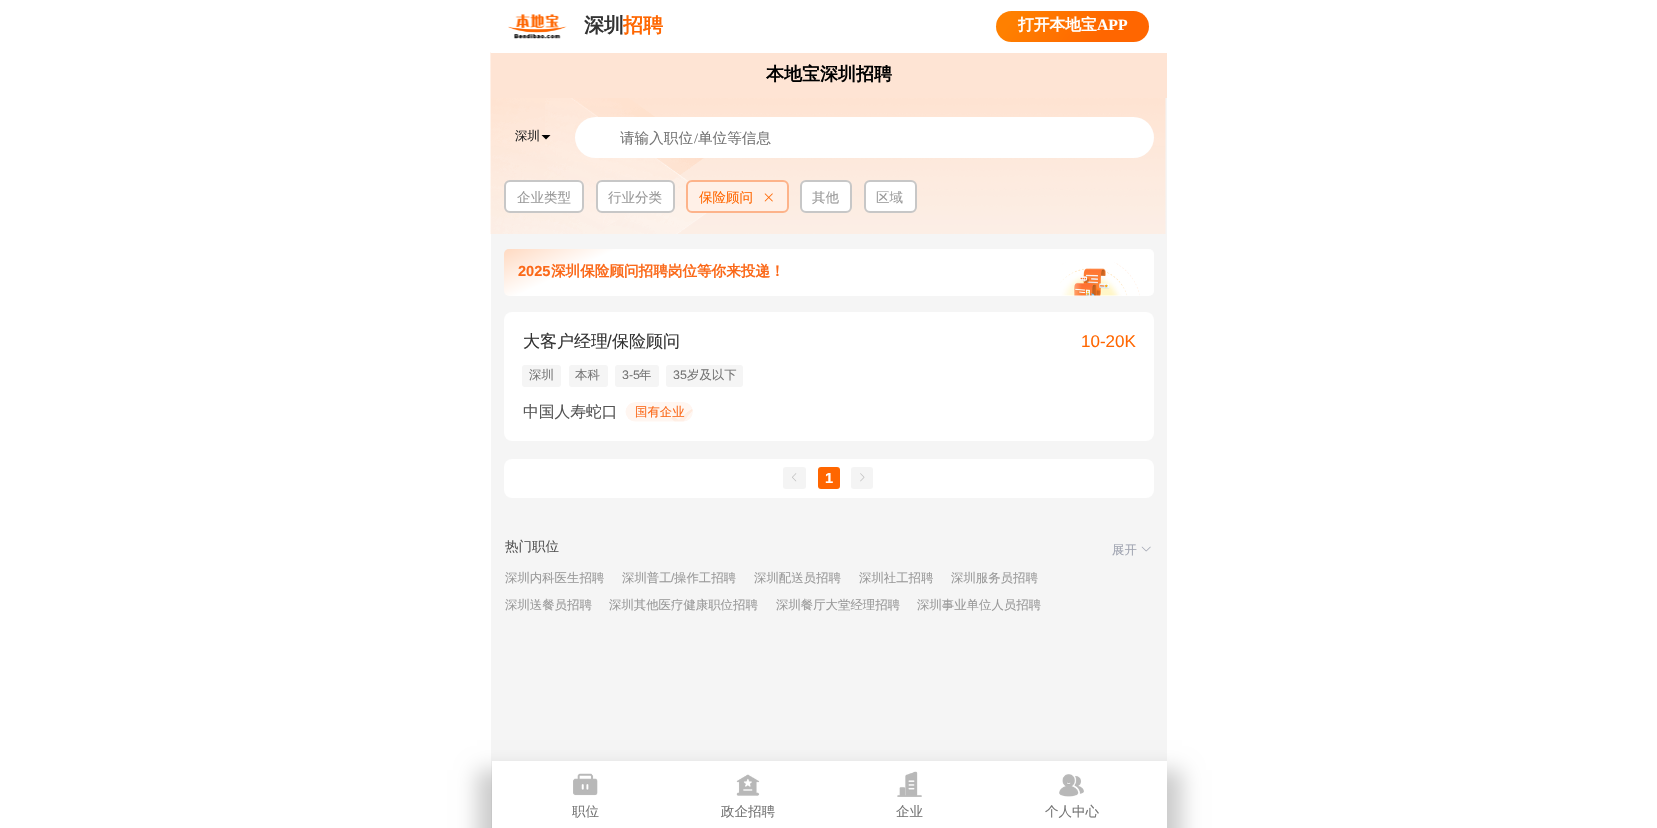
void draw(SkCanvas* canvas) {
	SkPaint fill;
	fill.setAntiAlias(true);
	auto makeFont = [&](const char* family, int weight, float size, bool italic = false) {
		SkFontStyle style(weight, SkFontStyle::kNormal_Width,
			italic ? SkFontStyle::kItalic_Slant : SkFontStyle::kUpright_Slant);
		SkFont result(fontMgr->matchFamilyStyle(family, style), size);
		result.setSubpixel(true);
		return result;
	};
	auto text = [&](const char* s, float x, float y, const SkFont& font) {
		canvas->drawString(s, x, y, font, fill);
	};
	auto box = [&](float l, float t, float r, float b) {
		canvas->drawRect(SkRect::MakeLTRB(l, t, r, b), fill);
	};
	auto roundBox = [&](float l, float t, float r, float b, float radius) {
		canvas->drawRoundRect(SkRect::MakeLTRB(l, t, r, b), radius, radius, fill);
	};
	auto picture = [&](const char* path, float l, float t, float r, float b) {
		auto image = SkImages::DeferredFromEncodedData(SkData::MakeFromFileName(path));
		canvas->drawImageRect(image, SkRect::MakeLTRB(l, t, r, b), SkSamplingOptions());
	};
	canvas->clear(0xFFFFFFFF);
	fill.setColor(0xFFF5F5F5);
	box(491, 98, 1167, 828);
	picture("image1.png", 490, 52, 1166, 234);
	fill.setColor(0xFFFFFFFF);
	box(491, 52, 1166, 53);
	picture("image0.png", 508, 14, 567, 39);
	{
		const SkColor colors[] = {0xFFFF8000, 0xFFFF6600};
		const float stops[] = {0.12f, 0.7f};
		const SkPoint ends[] = {{1011, -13}, {1134, 66}};
		fill.setShader(SkGradientShader::MakeLinear(ends, colors, stops, 2, SkTileMode::kClamp));
		fill.setAlpha(255);
	}
	roundBox(996, 11, 1149, 42, 15.5f);
	fill.setShader(nullptr);
	fill.setColor(0xFFFEE4D4);
	box(491, 53, 1167, 98);
	fill.setColor(0xFF000000);
	canvas->drawPath(SkPathBuilder().moveTo(541.5f, 135).lineTo(550.5f, 135).lineTo(546, 139.5f).close().detach(), fill);
	fill.setColor(0xFFFFFFFF);
	roundBox(575, 117, 1154, 158, 20.5f);
	canvas->drawRoundRect(SkRect::MakeLTRB(505, 181, 583, 212), 5, 5, fill);
	fill.setStyle(SkPaint::kStroke_Style);
	fill.setStrokeWidth(2);
	fill.setColor(0xFFC7C7C7);
	canvas->drawRoundRect(SkRect::MakeLTRB(505, 181, 583, 212), 5, 5, fill);
	fill.setStyle(SkPaint::kFill_Style);
	fill.setColor(0xFFFFFFFF);
	canvas->drawRoundRect(SkRect::MakeLTRB(597, 181, 674, 212), 5, 5, fill);
	fill.setStyle(SkPaint::kStroke_Style);
	fill.setColor(0xFFC7C7C7);
	canvas->drawRoundRect(SkRect::MakeLTRB(597, 181, 674, 212), 5, 5, fill);
	fill.setStyle(SkPaint::kFill_Style);
	fill.setColor(0xFFFFF0E7);
	canvas->drawRoundRect(SkRect::MakeLTRB(687, 181, 788, 212), 5, 5, fill);
	fill.setStyle(SkPaint::kStroke_Style);
	fill.setColor(0xFFFDB38A);
	canvas->drawRoundRect(SkRect::MakeLTRB(687, 181, 788, 212), 5, 5, fill);
	picture("image2.png", 764, 193, 773, 202);
	fill.setStyle(SkPaint::kFill_Style);
	fill.setColor(0xFFFFFFFF);
	canvas->drawRoundRect(SkRect::MakeLTRB(801, 181, 851, 212), 5, 5, fill);
	fill.setStyle(SkPaint::kStroke_Style);
	fill.setColor(0xFFC7C7C7);
	canvas->drawRoundRect(SkRect::MakeLTRB(801, 181, 851, 212), 5, 5, fill);
	fill.setStyle(SkPaint::kFill_Style);
	fill.setColor(0xFFFFFFFF);
	canvas->drawRoundRect(SkRect::MakeLTRB(865, 181, 916, 212), 5, 5, fill);
	fill.setStyle(SkPaint::kStroke_Style);
	fill.setColor(0xFFC7C7C7);
	canvas->drawRoundRect(SkRect::MakeLTRB(865, 181, 916, 212), 5, 5, fill);
	fill.setStyle(SkPaint::kFill_Style);
	{
		const SkColor colors[] = {0xFFFFDAC2, 0xFFFFFFFF};
		const float stops[] = {0, 0.15f};
		const SkPoint ends[] = {{762, 129}, {896, 416}};
		fill.setShader(SkGradientShader::MakeLinear(ends, colors, stops, 2, SkTileMode::kClamp));
		fill.setAlpha(255);
	}
	roundBox(504, 249, 1154, 296, 5);
	picture("image3.png", 1060, 262, 1140, 296);
	fill.setShader(nullptr);
	fill.setColor(0xFFFFFFFF);
	roundBox(504, 312, 1154, 441, 8);
	fill.setColor(0xFFF5F5F5);
	roundBox(522, 365, 561, 387, 3);
	roundBox(569, 365, 608, 387, 3);
	roundBox(615, 365, 659, 387, 3);
	roundBox(666, 365, 743, 387, 3);
	picture("image4.png", 625, 402, 693, 422);
	fill.setColor(0xFFFFFFFF);
	roundBox(504, 459, 1154, 498, 8);
	fill.setColor(0xFFF4F4F4);
	roundBox(783, 467, 806, 489, 3);
	picture("image5.png", 792, 473, 797, 482);
	fill.setColor(0xFFFF6600);
	roundBox(818, 467, 840, 489, 3);
	fill.setColor(0xFFF4F4F4);
	roundBox(851, 467, 873, 489, 3);
	picture("image6.png", 860, 473, 865, 482);
	picture("image7.png", 1141, 546, 1151, 552);
	fill.setColor(0x33000000);
	fill.setMaskFilter(SkMaskFilter::MakeBlur(kNormal_SkBlurStyle, 10));
	canvas->drawRect(SkRect::MakeLTRB(477, 770, 1182, 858), fill);
	fill.setMaskFilter(nullptr);
	fill.setColor(0xFFFFFFFF);
	box(492, 761, 1167, 828);
	picture("image8.png", 573, 773, 598, 796);
	picture("image9.png", 736, 774, 760, 796);
	picture("image10.png", 897, 771, 922, 797);
	picture("image11.png", 1059, 774, 1084, 797);
	auto font1 = makeFont("WenQuanYi Zen Hei", 700, 20);
	fill.setColor(0xFF333333);
	text("深圳", 584, 32, font1);
	fill.setColor(0xFFFF6600);
	text("招聘", 623, 32, font1);
	auto font2 = makeFont("WenQuanYi Zen Hei", 700, 15.75f);
	fill.setColor(0xFFFFFFFF);
	text("打开本地宝", 1018, 30, font2);
	auto font3 = makeFont("Liberation Serif", 700, 15.75f);
	text("APP", 1097, 30, font3);
	auto font4 = makeFont("WenQuanYi Zen Hei", 700, 18);
	fill.setColor(0xFF000000);
	text("本地宝深圳招聘", 766, 80, font4);
	auto font5 = makeFont("WenQuanYi Zen Hei", 500, 12.4f);
	fill.setColor(0xFF222222);
	text("深圳", 515, 140, font5);
	auto font6 = makeFont("WenQuanYi Zen Hei", 500, 14.6f);
	fill.setColor(0xFF757575);
	text("请输入职位", 620, 143, font6);
	auto font7 = makeFont("Liberation Serif", 400, 14.6f);
	text("/", 694, 143, font7);
	text("单位等信息", 698, 143, font6);
	auto font8 = makeFont("WenQuanYi Zen Hei", 500, 13.5f);
	fill.setColor(0xFF999999);
	text("企业类型", 517, 202, font8);
	text("行业分类", 608, 202, font8);
	fill.setColor(0xFFFF6600);
	text("保险顾问", 699, 202, font8);
	fill.setColor(0xFF999999);
	text("其他", 812, 202, font8);
	text("区域", 876, 202, font8);
	auto font9 = makeFont("Liberation Sans", 700, 14.6f);
	fill.setColor(0xFFFB6919);
	text("2025", 518, 276, font9);
	auto font10 = makeFont("WenQuanYi Zen Hei", 700, 14.6f);
	text("深圳保险顾问招聘岗位等你来投递！", 551, 276, font10);
	auto font11 = makeFont("WenQuanYi Zen Hei", 500, 17);
	fill.setColor(0xFF333333);
	text("大客户经理", 523, 347, font11);
	auto font12 = makeFont("Liberation Sans", 400, 17);
	text("/", 607, 347, font12);
	text("保险顾问", 612, 347, font11);
	fill.setColor(0xFFFF6600);
	text("10-20K", 1081, 347, font12);
	fill.setColor(0xFF757575);
	text("深圳", 529, 379, font5);
	text("本科", 575, 379, font5);
	auto font13 = makeFont("Liberation Sans", 400, 12.4f);
	text("3-5", 622, 379, font13);
	text("年", 639, 379, font5);
	text("35", 673, 379, font13);
	text("岁及以下", 687, 379, font5);
	auto font14 = makeFont("WenQuanYi Zen Hei", 500, 15.75f);
	fill.setColor(0xFF555555);
	text("中国人寿蛇口", 523, 417, font14);
	fill.setColor(0xFFFB6919);
	text("国有企业", 635, 416, font5);
	fill.setColor(0xFFFFFFFF);
	text("1", 825, 483, font9);
	fill.setColor(0xFF555555);
	text("热门职位", 505, 551, font8);
	fill.setColor(0xFF999999);
	text("深圳内科医生招聘", 505, 582, font5);
	text("深圳普工", 622, 582, font5);
	text("/", 671, 582, font13);
	text("操作工招聘", 674, 582, font5);
	text("深圳配送员招聘", 754, 582, font5);
	text("深圳社工招聘", 859, 582, font5);
	text("深圳服务员招聘", 951, 582, font5);
	text("深圳送餐员招聘", 505, 609, font5);
	text("深圳其他医疗健康职位招聘", 609, 609, font5);
	text("深圳餐厅大堂经理招聘", 776, 609, font5);
	text("深圳事业单位人员招聘", 917, 609, font5);
	fill.setColor(0xFF9FA3B0);
	text("展开", 1112, 554, font5);
	fill.setColor(0xFF757575);
	text("职位", 572, 816, font8);
	text("政企招聘", 721, 816, font8);
	text("企业", 896, 816, font8);
	text("个人中心", 1045, 816, font8);
}
